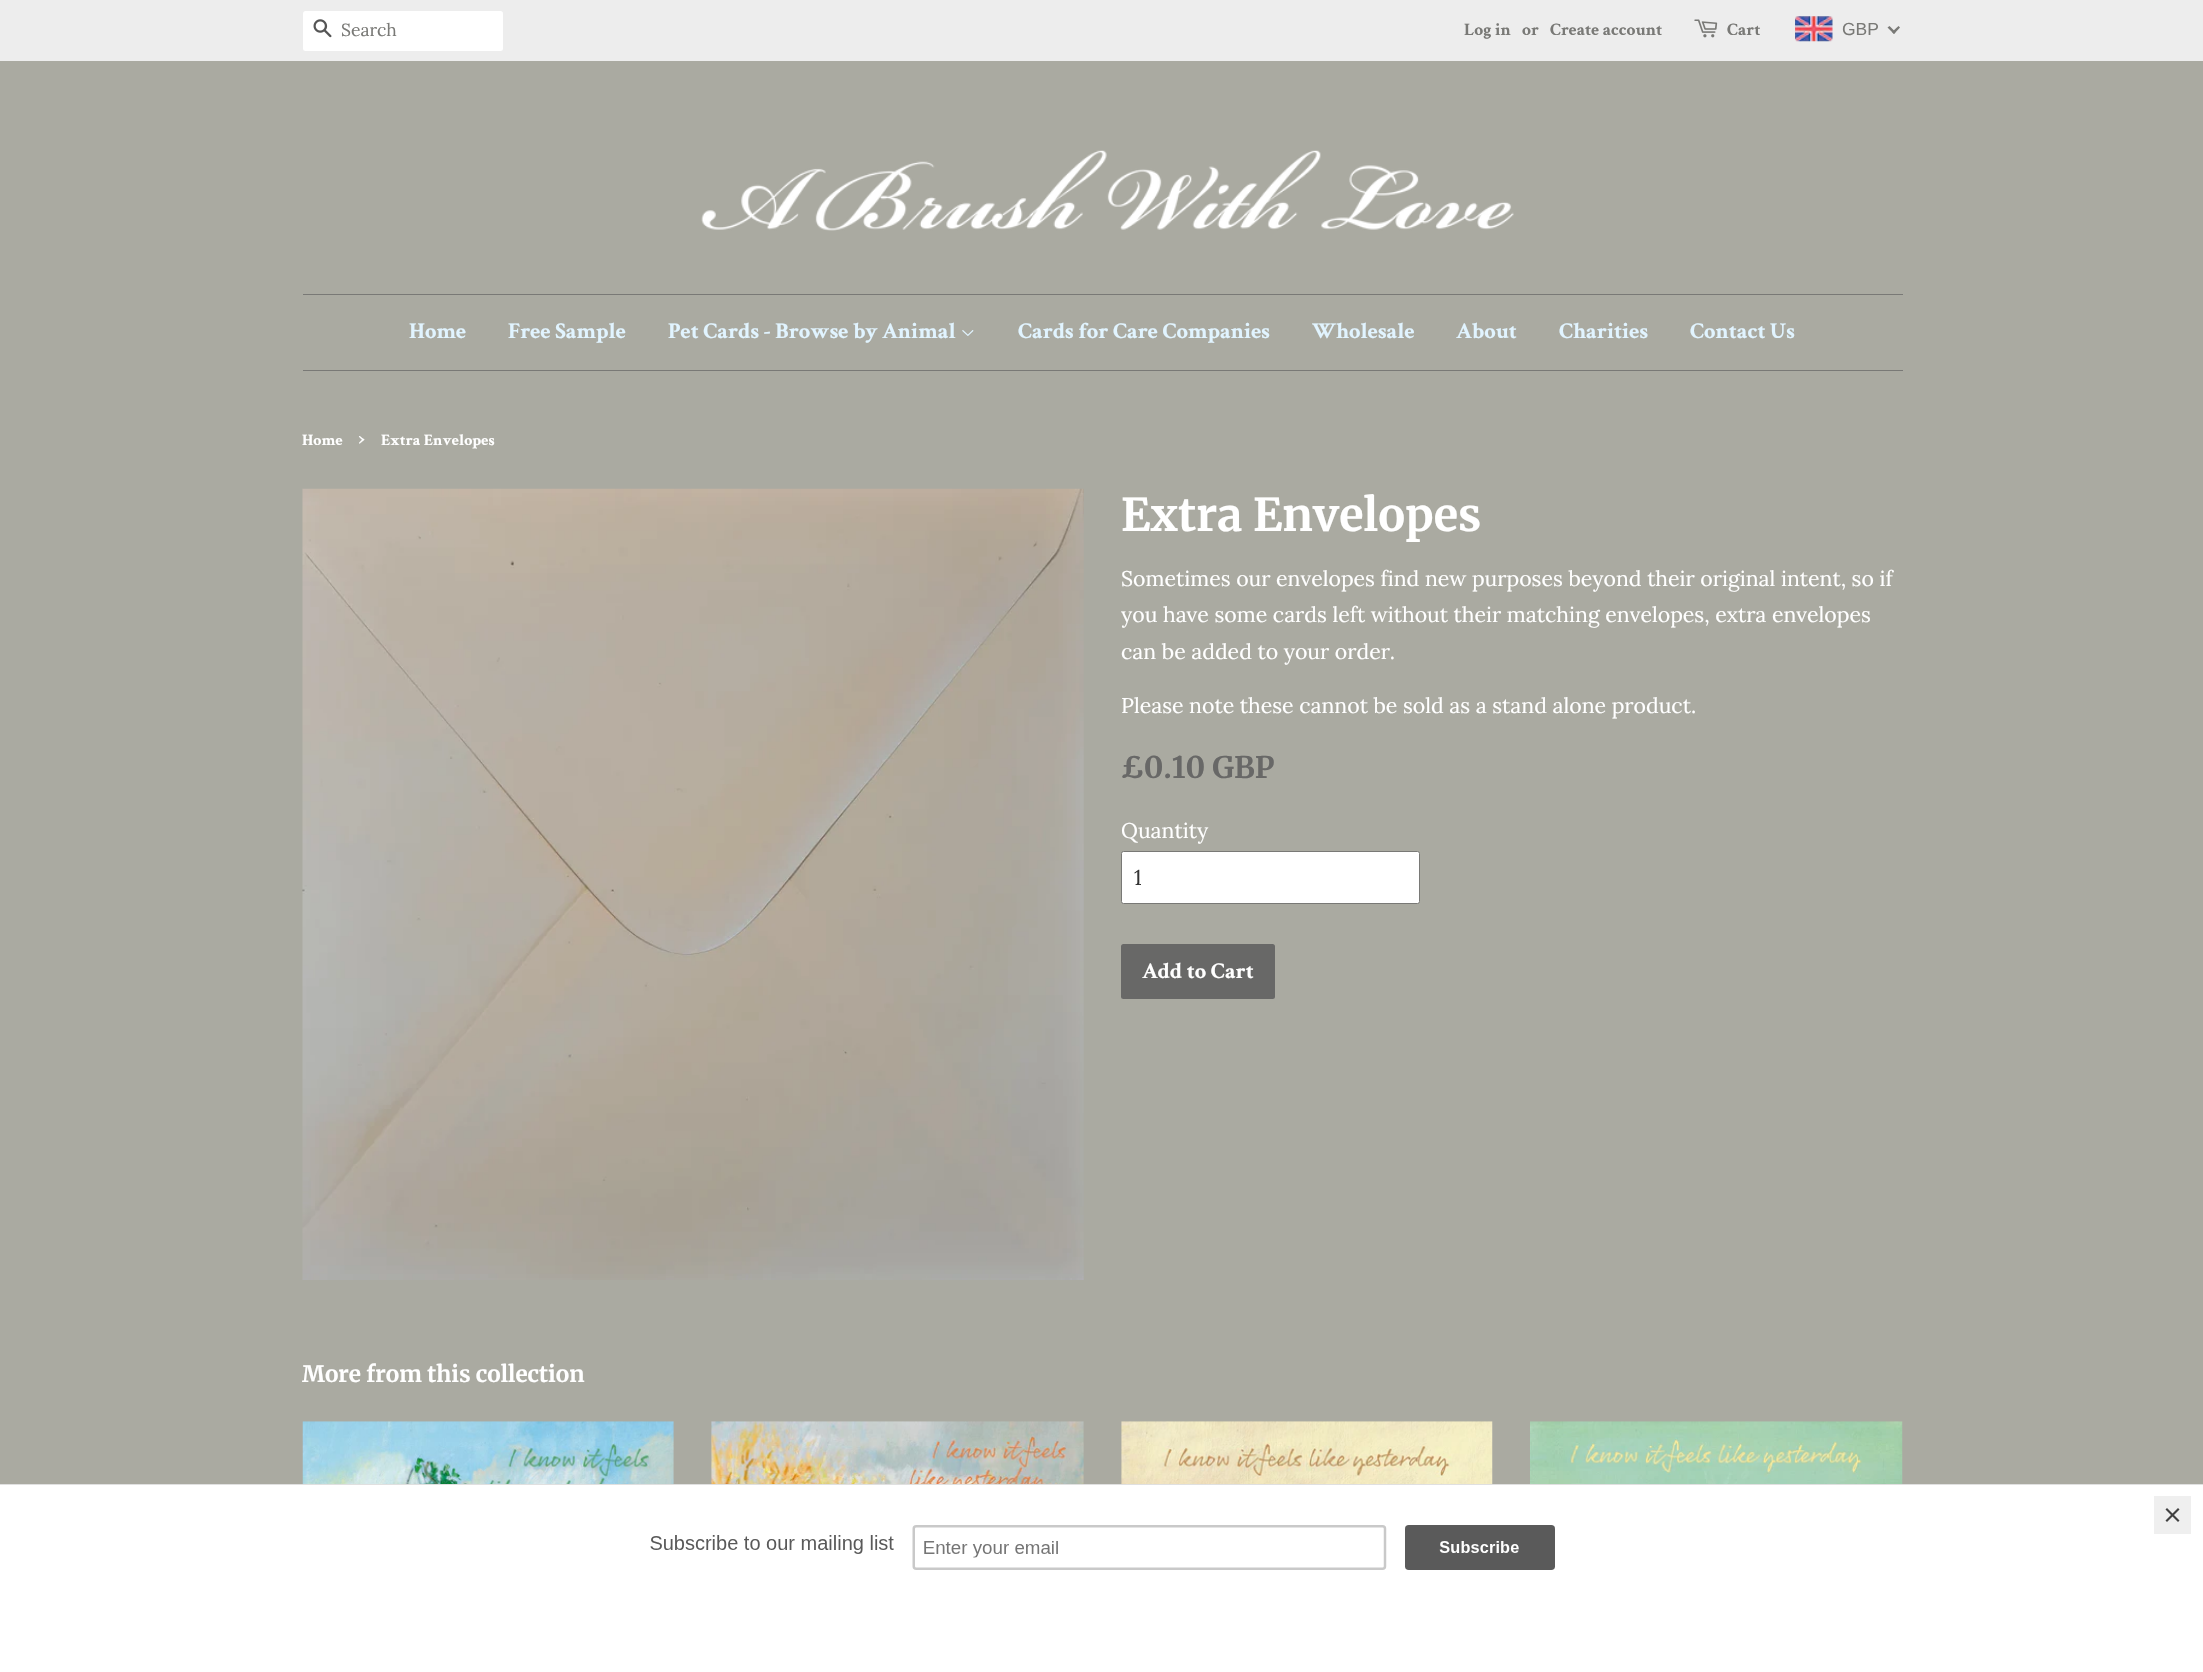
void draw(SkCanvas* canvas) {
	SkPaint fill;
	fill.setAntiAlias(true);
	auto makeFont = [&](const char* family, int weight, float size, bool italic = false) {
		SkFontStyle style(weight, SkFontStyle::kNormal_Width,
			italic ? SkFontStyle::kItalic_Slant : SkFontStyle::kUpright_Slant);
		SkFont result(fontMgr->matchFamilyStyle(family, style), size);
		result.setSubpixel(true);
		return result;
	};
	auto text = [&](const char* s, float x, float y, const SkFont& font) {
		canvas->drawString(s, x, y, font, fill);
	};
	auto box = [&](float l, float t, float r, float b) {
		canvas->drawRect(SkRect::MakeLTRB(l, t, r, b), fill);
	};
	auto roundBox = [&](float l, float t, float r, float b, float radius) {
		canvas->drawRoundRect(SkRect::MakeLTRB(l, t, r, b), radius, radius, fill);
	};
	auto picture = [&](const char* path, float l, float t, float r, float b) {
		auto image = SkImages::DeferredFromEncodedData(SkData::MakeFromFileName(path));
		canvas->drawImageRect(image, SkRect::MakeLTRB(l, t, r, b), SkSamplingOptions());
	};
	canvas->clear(0xFFAAAAA1);
	fill.setColor(0xFFEDEDED);
	box(0, 0, 2203, 61);
	fill.setColor(0xFFFFFFFF);
	roundBox(303, 11, 503, 51, 2.5f);
	picture("image0.png", 313, 19, 332, 38);
	picture("image1.png", 1694, 19, 1718, 38);
	picture("image2.png", 1795, 16, 1833, 42);
	fill.setColor(0xFF797976);
	canvas->drawPath(SkPathBuilder().moveTo(1898.5f, 26).lineTo(1900, 27.5f).lineTo(1894, 34).lineTo(1892, 32).close().detach(), fill);
	canvas->drawPath(SkPathBuilder().moveTo(1889.5f, 26).lineTo(1895.5f, 32).lineTo(1894, 34).lineTo(1887.5f, 27.5f).close().detach(), fill);
	picture("image3.png", 701, 150, 1514, 231);
	box(303, 294, 1903, 295);
	box(303, 370, 1903, 371);
	picture("image4.png", 962, 330, 974, 336);
	picture("image5.png", 302, 488, 1084, 1280);
	fill.setColor(0xFFFFFFFF);
	canvas->drawRoundRect(SkRect::MakeLTRB(1121.5f, 851.5f, 1419.5f, 903.5f), 2, 2, fill);
	fill.setStyle(SkPaint::kStroke_Style);
	fill.setStrokeWidth(1);
	fill.setColor(0xFF797976);
	canvas->drawRoundRect(SkRect::MakeLTRB(1121.5f, 851.5f, 1419.5f, 903.5f), 2, 2, fill);
	fill.setStyle(SkPaint::kFill_Style);
	fill.setColor(0xFF686867);
	roundBox(1121, 944, 1275, 999, 2.5f);
	picture("image6.png", 302, 1421, 674, 1484);
	picture("image7.png", 711, 1421, 1084, 1484);
	picture("image8.png", 1121, 1421, 1493, 1484);
	picture("image9.png", 1530, 1421, 1903, 1484);
	fill.setColor(0xFFFFFFFF);
	box(0, 1485, 2203, 1672);
	fill.setColor(0xFFE0E0E0);
	box(0, 1484, 2203, 1485);
	picture("image10.png", 650, 1525, 1555, 1570);
	fill.setColor(0xFFEFEFEF);
	box(2154, 1496, 2191, 1534);
	fill.setColor(0xFF414141);
	canvas->drawPath(SkPathBuilder().moveTo(2178, 1508).lineTo(2179.5f, 1509.5f).lineTo(2167, 1522).lineTo(2165.5f, 1520.5f).close().detach(), fill);
	canvas->drawPath(SkPathBuilder().moveTo(2165.5f, 1509.5f).lineTo(2167, 1508).lineTo(2179.5f, 1520.5f).lineTo(2178, 1522).close().detach(), fill);
	auto font1 = makeFont("Lora", 400, 17.5f);
	fill.setColor(0xFF797976);
	text("Search", 341, 36, font1);
	auto font2 = makeFont("Crimson Text", 700, 17.5f);
	text("Log in", 1464, 35, font2);
	text("or", 1522, 35, font2);
	text("Create account", 1550, 35, font2);
	text("Cart", 1727, 35, font2);
	auto font3 = makeFont("Liberation Sans", 400, 17.5f);
	text("GBP", 1842, 35, font3);
	auto font4 = makeFont("Crimson Text", 700, 22.5f);
	fill.setColor(0xFFE1F4FF);
	text("Home", 409, 338, font4);
	text("Free Sample", 508, 338, font4);
	text("Pet Cards - Browse by Animal", 668, 338, font4);
	text("Cards for Care Companies", 1018, 338, font4);
	text("Wholesale", 1312, 338, font4);
	text("About", 1456, 338, font4);
	text("Charities", 1559, 338, font4);
	text("Contact Us", 1690, 338, font4);
	auto font5 = makeFont("Crimson Text", 700, 16);
	fill.setColor(0xFFFFFFFF);
	text("Home", 302, 445, font5);
	auto font6 = makeFont("Crimson Text", 700, 22);
	text("›", 358, 445, font6);
	text("Extra Envelopes", 381, 445, font5);
	auto font7 = makeFont("Merriweather", 300, 45);
	text("Extra Envelopes", 1121, 531, font7);
	auto font8 = makeFont("Lora", 400, 21.25f);
	text("Sometimes our envelopes find new purposes beyond their original intent, so if", 1121, 586, font8);
	text("you have some cards left without their matching envelopes, extra envelopes", 1121, 622, font8);
	text("can be added to your order.", 1121, 659, font8);
	text("Please note these cannot be sold as a stand alone product.", 1121, 713, font8);
	auto font9 = makeFont("Merriweather", 300, 29.75f);
	fill.setColor(0xFF686867);
	text("£0.10 GBP", 1121, 778, font9);
	fill.setColor(0xFFFFFFFF);
	text("Quantity", 1121, 838, font8);
	fill.setColor(0xFF333333);
	text("1", 1134, 885, font8);
	fill.setColor(0xFFFFFFFF);
	text("Add to Cart", 1142, 978, font4);
	auto font10 = makeFont("Merriweather", 300, 22.5f);
	text("More from this collection", 302, 1382, font10);
}
